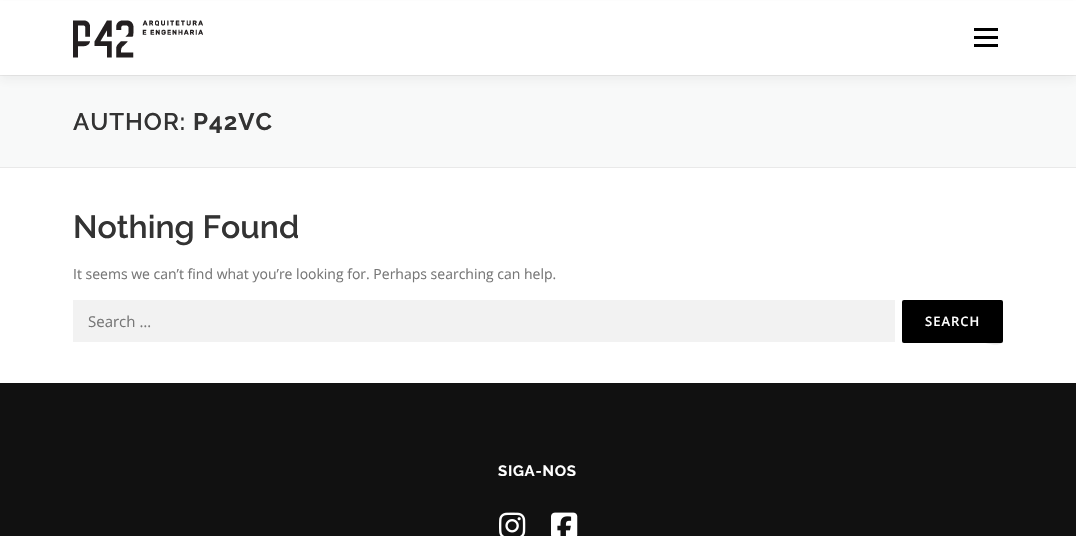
void draw(SkCanvas* canvas) {
	SkPaint fill;
	fill.setAntiAlias(true);
	auto makeFont = [&](const char* family, int weight, float size, bool italic = false) {
		SkFontStyle style(weight, SkFontStyle::kNormal_Width,
			italic ? SkFontStyle::kItalic_Slant : SkFontStyle::kUpright_Slant);
		SkFont result(fontMgr->matchFamilyStyle(family, style), size);
		result.setSubpixel(true);
		return result;
	};
	auto text = [&](const char* s, float x, float y, const SkFont& font) {
		canvas->drawString(s, x, y, font, fill);
	};
	auto spacedText = [&](const char* s, float x, float y, const SkFont& font, const SkPaint& ink, float letter, float word) {
		std::vector<SkGlyphID> glyphs(font.countText(s, strlen(s), SkTextEncoding::kUTF8));
		std::vector<float> xs(glyphs.size());
		font.textToGlyphs(s, strlen(s), SkTextEncoding::kUTF8, glyphs);
		font.getXPos(glyphs, xs, x);
		float extra = 0;
		for (size_t i = 0; i < glyphs.size(); i++) {
			xs[i] += extra;
			extra += letter + word * (glyphs[i] == font.unicharToGlyph(' '));
		}
		canvas->drawTextBlob(SkTextBlob::MakeFromPosHGlyphs(glyphs, xs, y, font), 0, 0, ink);
	};
	auto box = [&](float l, float t, float r, float b) {
		canvas->drawRect(SkRect::MakeLTRB(l, t, r, b), fill);
	};
	auto roundBox = [&](float l, float t, float r, float b, float radius) {
		canvas->drawRoundRect(SkRect::MakeLTRB(l, t, r, b), radius, radius, fill);
	};
	auto picture = [&](const char* path, float l, float t, float r, float b) {
		auto image = SkImages::DeferredFromEncodedData(SkData::MakeFromFileName(path));
		canvas->drawImageRect(image, SkRect::MakeLTRB(l, t, r, b), SkSamplingOptions());
	};
	canvas->clear(0xFFFFFFFF);
	fill.setColor(0xFFF8F9F9);
	box(0, 76, 1076, 167);
	fill.setColor(0xFFE9E9E9);
	box(0, 75, 1076, 76);
	fill.setColor(0x0F323232);
	fill.setMaskFilter(SkMaskFilter::MakeBlur(kNormal_SkBlurStyle, 5));
	canvas->drawRect(SkRect::MakeLTRB(0, 5, 1076, 80), fill);
	fill.setMaskFilter(nullptr);
	fill.setColor(0xFFFFFFFF);
	box(0, 1, 1076, 75);
	picture("image0.png", 73, 20, 203, 58);
	fill.setColor(0xFF000000);
	box(974, 36, 998, 39);
	box(974, 28, 998, 31);
	box(974, 44, 998, 47);
	fill.setColor(0xFFE9E9E9);
	box(0, 167, 1076, 168);
	fill.setColor(0xFFF2F2F2);
	box(73, 300, 895, 342);
	fill.setColor(0xFF000000);
	roundBox(902, 300, 1003, 343, 2);
	fill.setColor(0x1A000000);
	canvas->drawPath(SkPathBuilder().moveTo(902, 340).cubicTo(902, 341, 902, 343, 904, 343).lineTo(985, 343).cubicTo(986, 343, 1003, 348, 1003, 340).cubicTo(1003, 341, 1002, 342, 1001, 342).lineTo(904, 342).cubicTo(903, 342, 902, 341, 902, 340).close().detach(), fill);
	fill.setColor(0xFF111111);
	box(0, 383, 1076, 536);
	picture("image1.png", 499, 512, 526, 536);
	picture("image2.png", 551, 512, 578, 536);
	auto font1 = makeFont("Raleway", 600, 24);
	fill.setColor(0xFF333333);
	spacedText("AUTHOR:", 73, 130, font1, fill, 1, 0);
	auto font2 = makeFont("Raleway", 700, 24);
	spacedText("P42VC", 193, 130, font2, fill, 1, 0);
	auto font3 = makeFont("Raleway", 600, 32);
	text("Nothing Found", 73, 238, font3);
	auto font4 = makeFont("Open Sans", 400, 14);
	fill.setColor(0xFF777777);
	text("It seems we can’t find what you’re looking for. Perhaps searching can help.", 73, 279, font4);
	auto font5 = makeFont("Open Sans", 400, 15);
	text("Search …", 88, 327, font5);
	auto font6 = makeFont("Open Sans", 600, 13);
	fill.setColor(0xFFFFFFFF);
	spacedText("SEARCH", 925, 326, font6, fill, 1, 0);
	auto font7 = makeFont("Raleway", 700, 15);
	spacedText("SIGA-NOS", 498, 476, font7, fill, 0.75f, 0);
}
